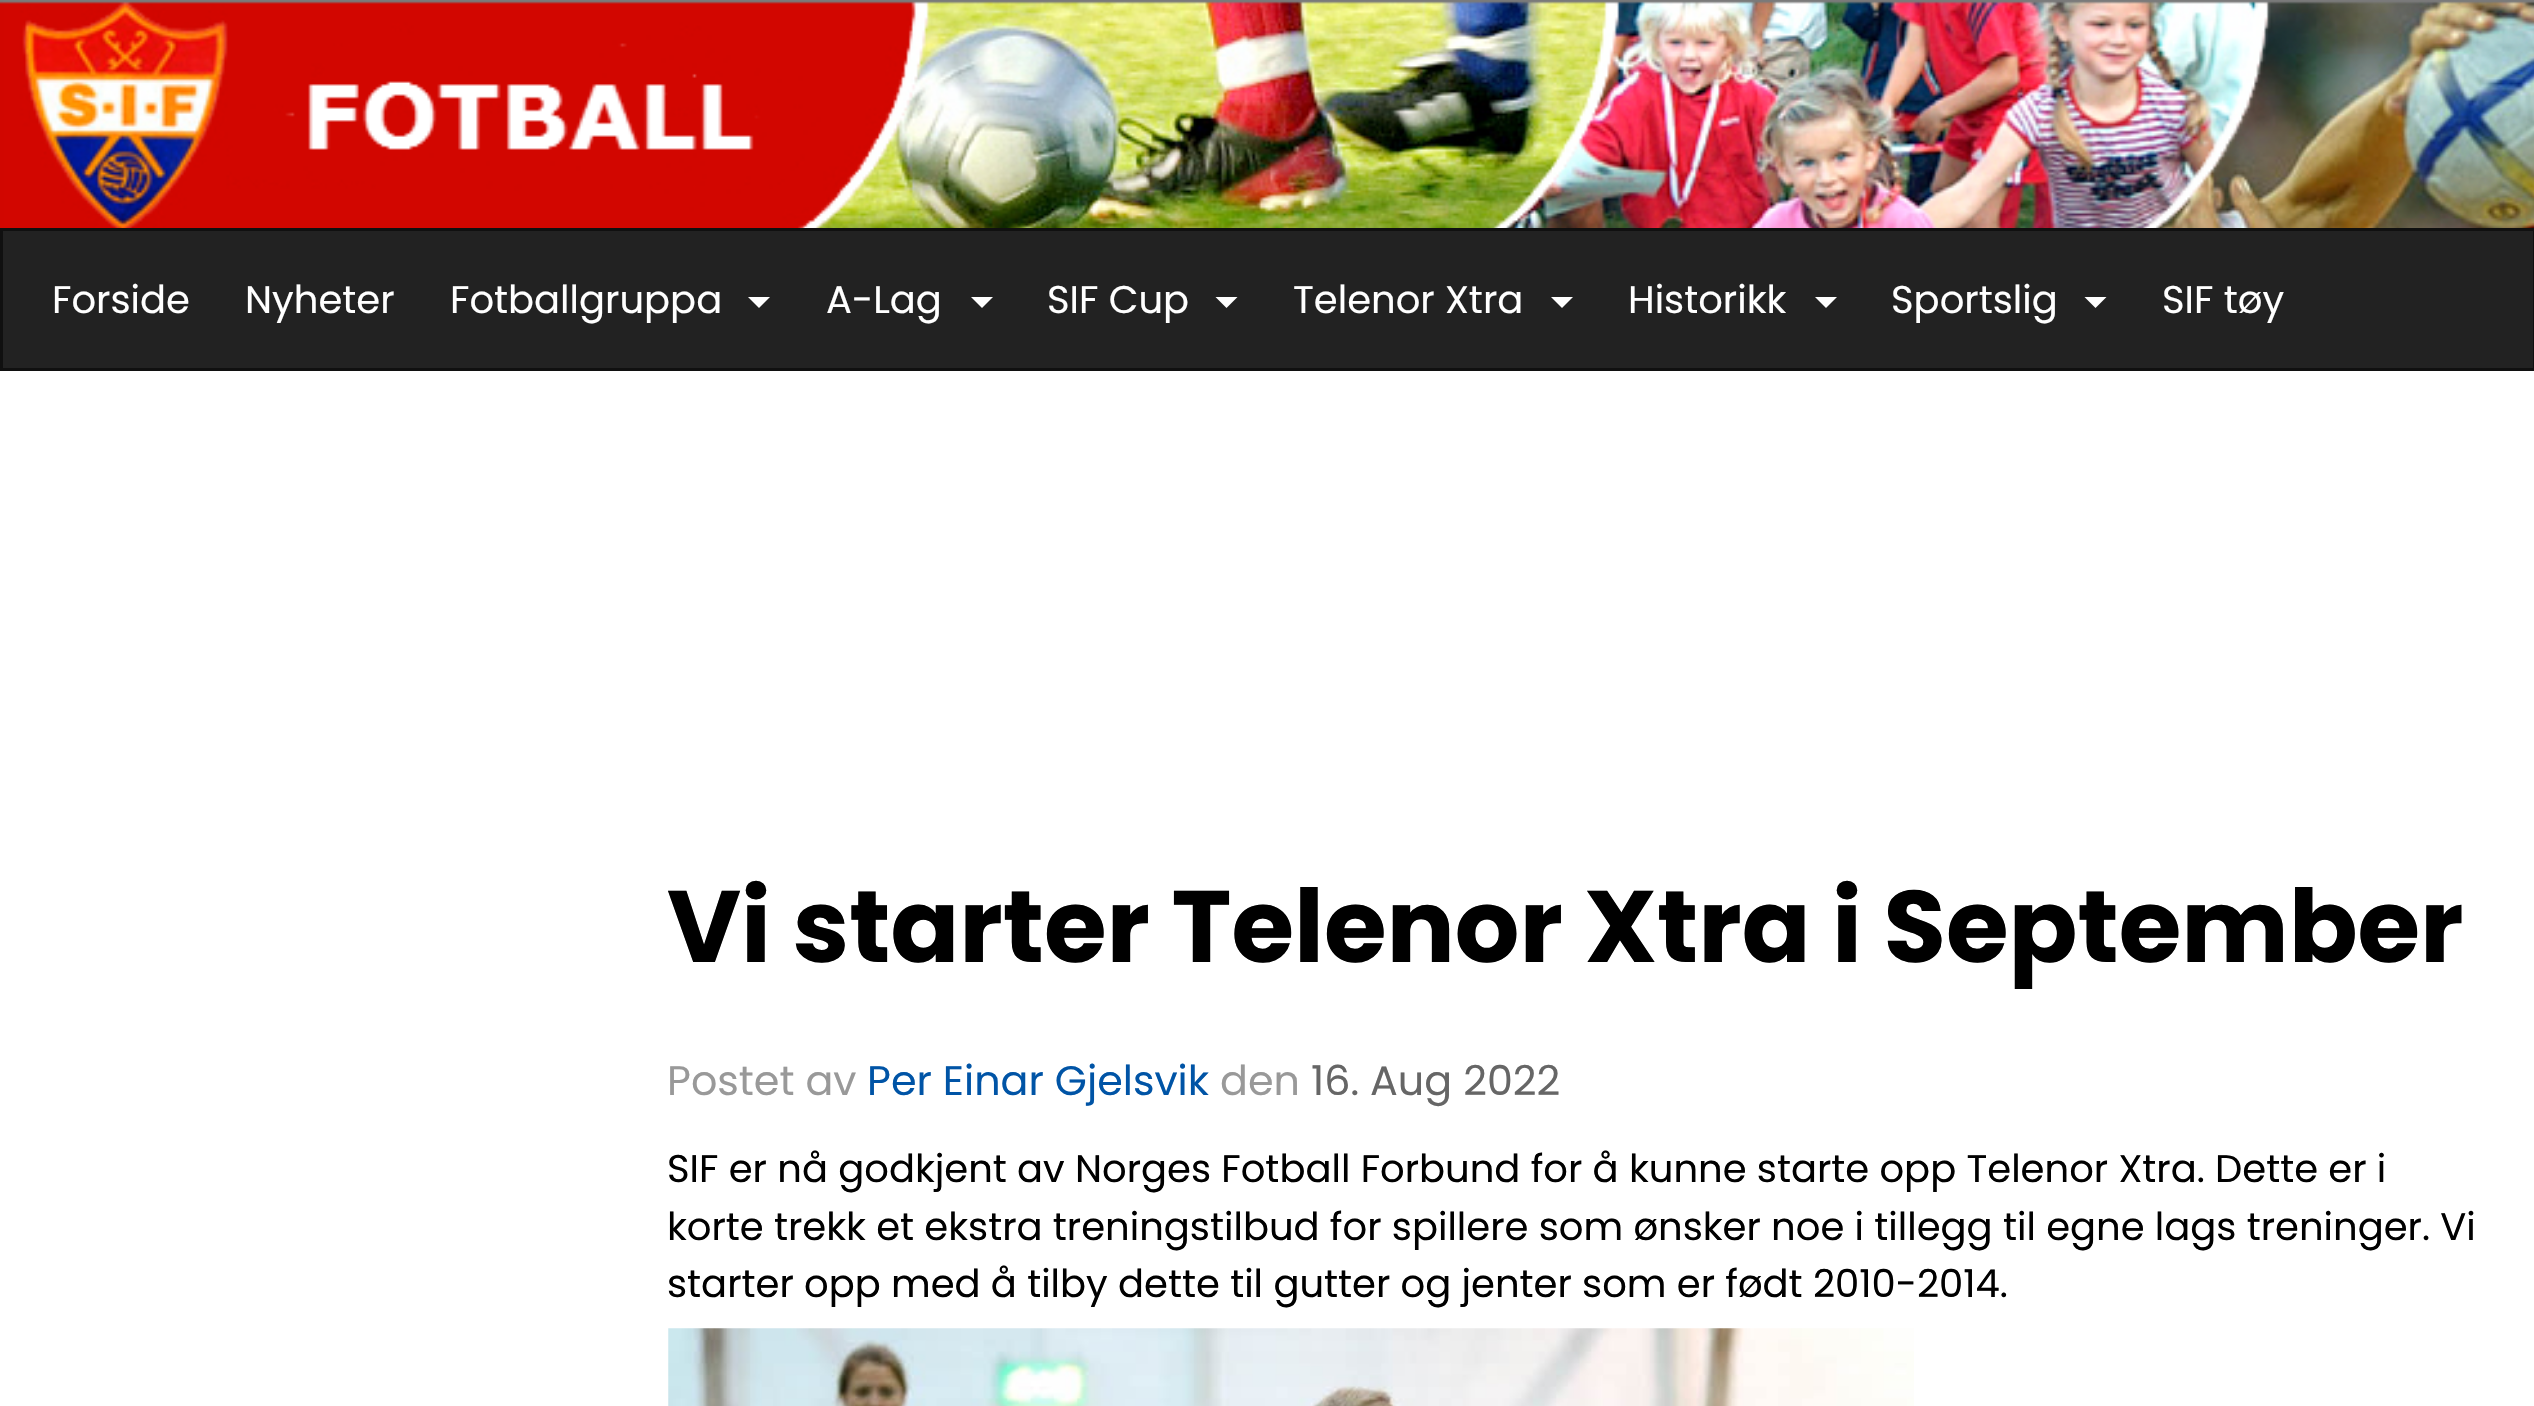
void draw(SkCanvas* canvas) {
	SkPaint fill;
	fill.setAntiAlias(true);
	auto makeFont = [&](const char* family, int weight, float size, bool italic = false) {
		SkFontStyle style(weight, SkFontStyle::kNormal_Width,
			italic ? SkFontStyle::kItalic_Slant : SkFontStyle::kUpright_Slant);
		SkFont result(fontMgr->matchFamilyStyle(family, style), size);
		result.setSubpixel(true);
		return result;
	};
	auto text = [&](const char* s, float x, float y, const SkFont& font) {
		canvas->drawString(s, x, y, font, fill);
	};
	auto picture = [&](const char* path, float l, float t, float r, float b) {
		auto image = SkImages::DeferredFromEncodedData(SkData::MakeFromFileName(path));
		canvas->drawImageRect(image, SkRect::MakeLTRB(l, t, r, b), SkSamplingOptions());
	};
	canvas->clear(0xFFFFFFFF);
	picture("image0.png", 0, 0, 2534, 228);
	fill.setColor(0xFF222222);
	canvas->drawRect(SkRect::MakeLTRB(1.5f, 229.5f, 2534.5f, 369.5f), fill);
	fill.setStyle(SkPaint::kStroke_Style);
	fill.setStrokeWidth(3);
	fill.setColor(0xFF101010);
	canvas->drawRect(SkRect::MakeLTRB(1.5f, 229.5f, 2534.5f, 369.5f), fill);
	fill.setStyle(SkPaint::kFill_Style);
	fill.setColor(0xFFFFFFFF);
	canvas->drawPath(SkPathBuilder().moveTo(748, 297).lineTo(770, 297).lineTo(759, 308).close().detach(), fill);
	canvas->drawPath(SkPathBuilder().moveTo(971, 297).lineTo(993, 297).lineTo(982, 308).close().detach(), fill);
	canvas->drawPath(SkPathBuilder().moveTo(1215.5f, 297).lineTo(1237.5f, 297).lineTo(1226.5f, 308).close().detach(), fill);
	canvas->drawPath(SkPathBuilder().moveTo(1551, 297).lineTo(1573, 297).lineTo(1562, 308).close().detach(), fill);
	canvas->drawPath(SkPathBuilder().moveTo(1815, 297).lineTo(1837, 297).lineTo(1826, 308).close().detach(), fill);
	canvas->drawPath(SkPathBuilder().moveTo(2084.5f, 297).lineTo(2106.5f, 297).lineTo(2095.5f, 308).close().detach(), fill);
	picture("image1.png", 668, 1328, 1914, 1406);
	auto font1 = makeFont("Poppins", 400, 38.5f);
	text("Forside", 52, 313, font1);
	text("Nyheter", 245, 313, font1);
	text("Fotballgruppa", 450, 313, font1);
	text("A-Lag", 826, 313, font1);
	text("SIF Cup", 1047, 313, font1);
	text("Telenor Xtra", 1293, 313, font1);
	text("Historikk", 1628, 313, font1);
	text("Sportslig", 1891, 313, font1);
	text("SIF tøy", 2162, 313, font1);
	auto font2 = makeFont("Poppins", 700, 101.5f);
	fill.setColor(0xFF000000);
	text("Vi starter Telenor Xtra i September", 667, 962, font2);
	auto font3 = makeFont("Poppins", 400, 41.25f);
	fill.setColor(0xFF999999);
	text("Postet av", 667, 1095, font3);
	fill.setColor(0xFF0054A6);
	text("Per Einar Gjelsvik", 867, 1095, font3);
	fill.setColor(0xFF999999);
	text("den", 1220, 1095, font3);
	fill.setColor(0xFF666666);
	text("16. Aug 2022", 1311, 1095, font3);
	fill.setColor(0xFF000000);
	text("SIF er nå godkjent av Norges Fotball Forbund for å kunne starte opp Telenor Xtra. Dette er i", 667, 1182, font1);
	text("korte trekk et ekstra treningstilbud for spillere som ønsker noe i tillegg til egne lags treninger. Vi", 667, 1240, font1);
	text("starter opp med å tilby dette til gutter og jenter som er født 2010-2014.", 667, 1297, font1);
}
